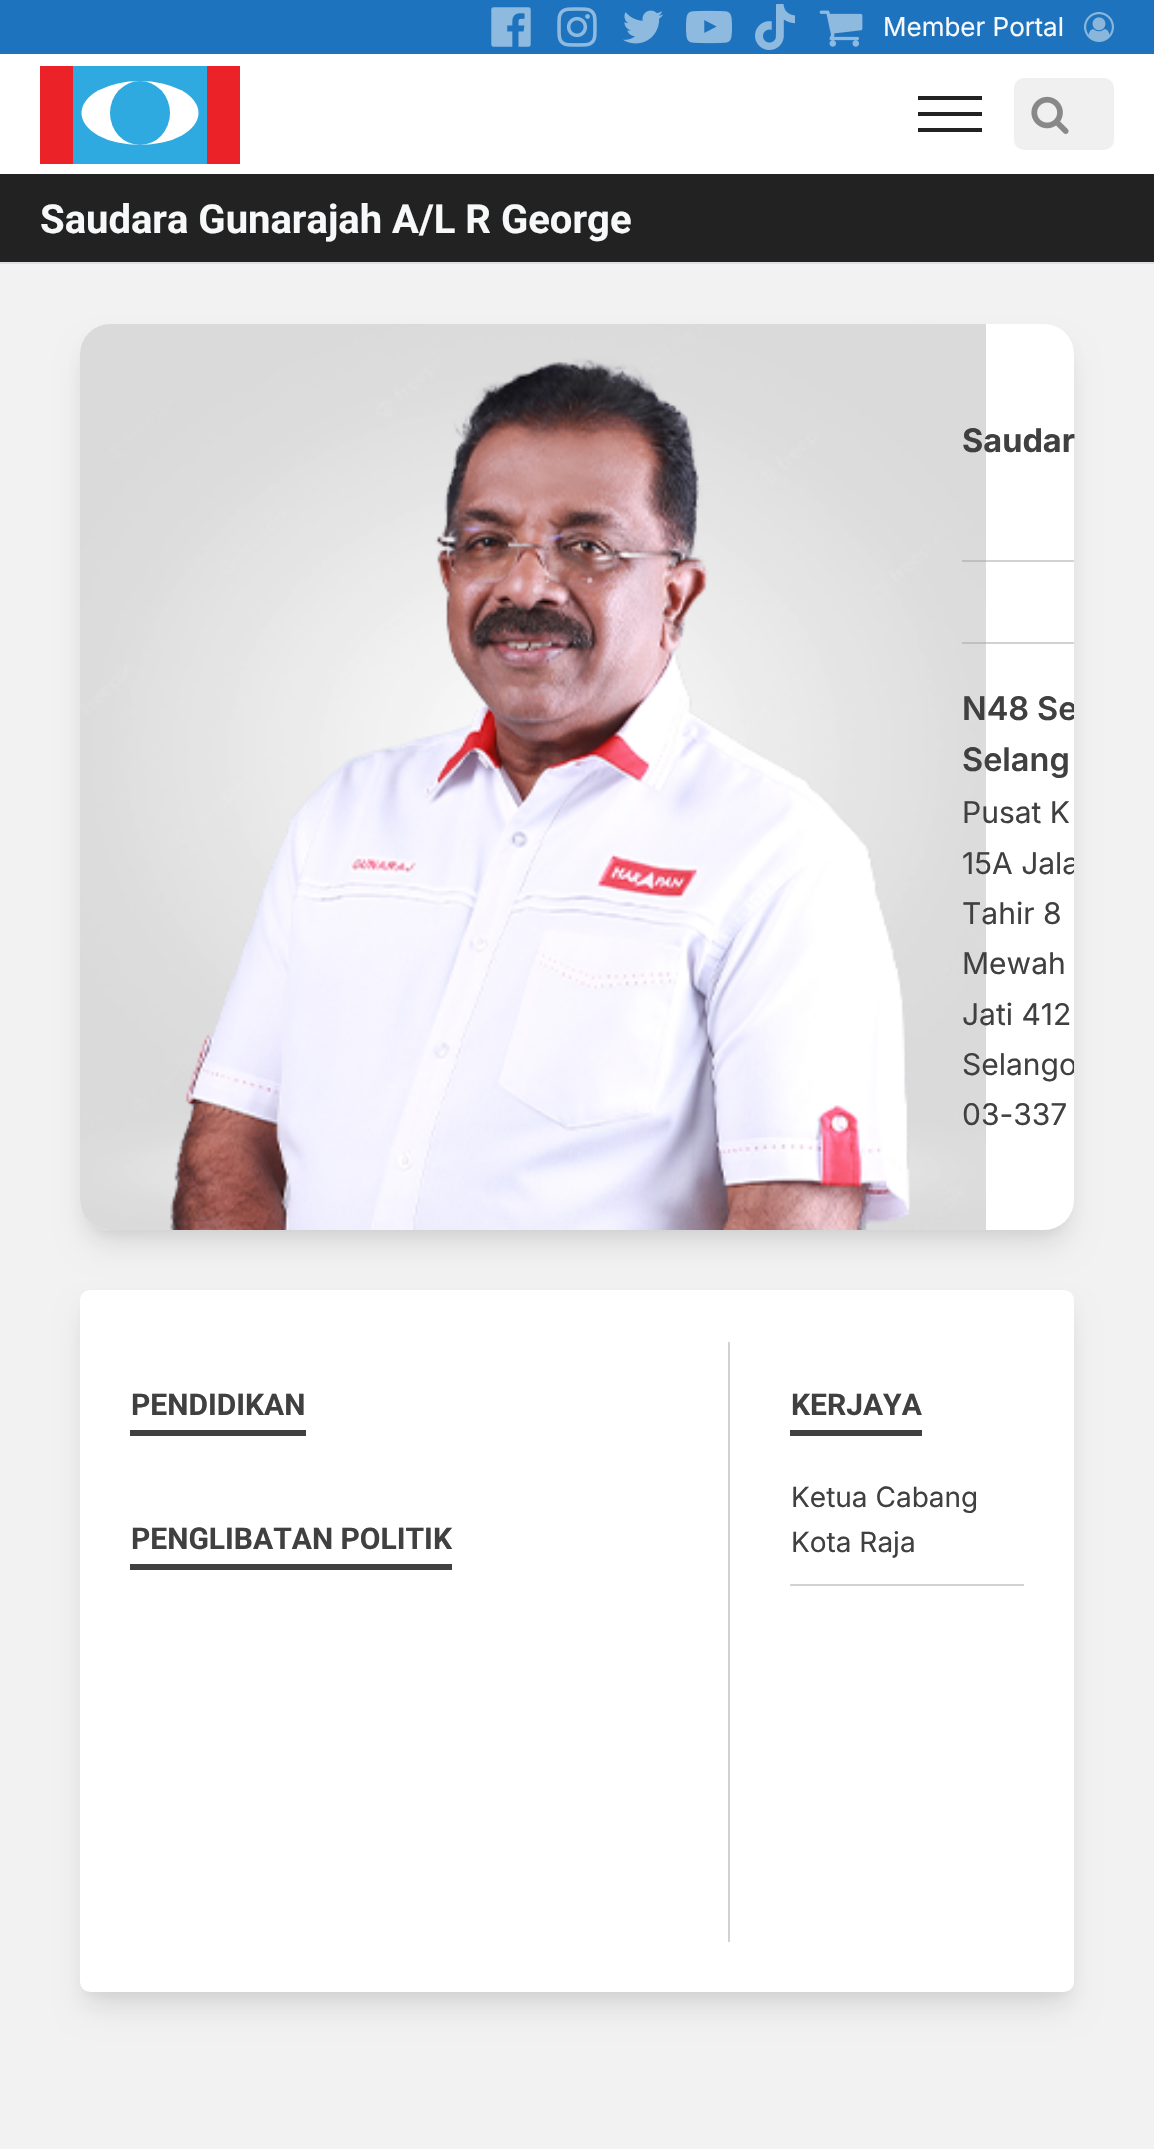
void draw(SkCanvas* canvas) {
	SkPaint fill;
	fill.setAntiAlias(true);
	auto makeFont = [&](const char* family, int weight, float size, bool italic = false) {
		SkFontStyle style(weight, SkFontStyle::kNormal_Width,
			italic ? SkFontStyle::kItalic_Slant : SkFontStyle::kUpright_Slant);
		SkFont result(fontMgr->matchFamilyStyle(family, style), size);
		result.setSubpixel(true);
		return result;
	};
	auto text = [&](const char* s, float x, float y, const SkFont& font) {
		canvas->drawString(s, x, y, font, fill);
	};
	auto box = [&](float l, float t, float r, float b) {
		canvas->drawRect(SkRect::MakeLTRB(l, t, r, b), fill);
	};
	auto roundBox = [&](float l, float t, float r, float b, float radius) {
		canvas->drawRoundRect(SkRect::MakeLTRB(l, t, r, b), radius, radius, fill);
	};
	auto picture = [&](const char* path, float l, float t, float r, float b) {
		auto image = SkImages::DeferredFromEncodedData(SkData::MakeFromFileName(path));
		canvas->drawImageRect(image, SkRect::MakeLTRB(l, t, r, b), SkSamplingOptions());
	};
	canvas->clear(0xFFFFFFFF);
	fill.setColor(0xFF1E73BE);
	box(0, 0, 1154, 54);
	picture("image0.png", 491, 7, 531, 47);
	picture("image1.png", 557, 7, 597, 47);
	picture("image2.png", 623, 10, 663, 44);
	picture("image3.png", 686, 10, 732, 44);
	picture("image4.png", 755, 4, 795, 50);
	picture("image5.png", 819, 10, 863, 47);
	picture("image6.png", 1084, 12, 1114, 42);
	fill.setColor(0xFFEB2329);
	box(40, 66, 240, 164);
	fill.setColor(0xFF2FAAE1);
	box(73, 66, 207, 164);
	fill.setColor(0xFFFFFFFF);
	canvas->drawOval(SkRect::MakeLTRB(81.5f, 81, 198.5f, 145), fill);
	fill.setColor(0xFF2FAAE1);
	canvas->drawOval(SkRect::MakeLTRB(110, 81, 170, 145), fill);
	fill.setColor(0xFF222222);
	box(918, 112, 982, 116);
	box(918, 96, 982, 100);
	box(918, 128, 982, 132);
	fill.setColor(0xFFF0F0F0);
	roundBox(1014, 78, 1114, 150, 10);
	picture("image7.png", 1031, 96, 1069, 134);
	fill.setColor(0xFF222222);
	box(0, 174, 1154, 262);
	fill.setColor(0xFFDCDFE4);
	box(0, 262, 1154, 264);
	fill.setColor(0xFFF2F2F2);
	box(0, 264, 1154, 2149);
	fill.setColor(0x0D000000);
	fill.setMaskFilter(SkMaskFilter::MakeBlur(kNormal_SkBlurStyle, 6));
	canvas->drawRoundRect(SkRect::MakeLTRB(84, 336, 1070, 1234), 26, 26, fill);
	fill.setMaskFilter(nullptr);
	fill.setColor(0x1A000000);
	fill.setMaskFilter(SkMaskFilter::MakeBlur(kNormal_SkBlurStyle, 15));
	canvas->drawRoundRect(SkRect::MakeLTRB(86, 350, 1068, 1244), 24, 24, fill);
	fill.setMaskFilter(nullptr);
	fill.setColor(0xFFFFFFFF);
	roundBox(80, 324, 1074, 1230, 30);
	picture("image8.png", 80, 324, 986, 1230);
	fill.setColor(0x7898A1A8);
	box(962, 560, 1074, 562);
	box(962, 642, 1074, 644);
	fill.setColor(0x0D000000);
	fill.setMaskFilter(SkMaskFilter::MakeBlur(kNormal_SkBlurStyle, 6));
	canvas->drawRoundRect(SkRect::MakeLTRB(84, 1302, 1070, 1996), 6, 6, fill);
	fill.setMaskFilter(nullptr);
	fill.setColor(0x1A000000);
	fill.setMaskFilter(SkMaskFilter::MakeBlur(kNormal_SkBlurStyle, 15));
	canvas->drawRoundRect(SkRect::MakeLTRB(86, 1316, 1068, 2006), 4, 4, fill);
	fill.setMaskFilter(nullptr);
	fill.setColor(0xFFFFFFFF);
	roundBox(80, 1290, 1074, 1992, 10);
	fill.setColor(0xFFCFD3D6);
	box(728, 1342, 730, 1942);
	fill.setColor(0xFF404040);
	box(130, 1430, 306, 1436);
	box(130, 1564, 452, 1570);
	box(790, 1430, 922, 1436);
	fill.setColor(0xFFCFD3D6);
	box(790, 1584, 1024, 1586);
	auto font1 = makeFont("Inter", 400, 26);
	fill.setColor(0xFFF7F8F9);
	text("Member Portal", 883, 36, font1);
	auto font2 = makeFont("Roboto", 700, 40);
	text("Saudara Gunarajah A/L R George", 40, 233, font2);
	auto font3 = makeFont("Inter", 700, 32.5f);
	fill.setColor(0xFF404040);
	text("Saudar", 962, 452, font3);
	auto font4 = makeFont("Inter", 600, 32.5f);
	text("N48", 962, 720, font4);
	canvas->save();
	canvas->clipPath(SkPathBuilder().moveTo(110, 324).lineTo(1044, 324).cubicTo(1060.5f, 324, 1074, 337.5f, 1074, 354).lineTo(1074, 1200).cubicTo(1074, 1216.5f, 1060.5f, 1230, 1044, 1230).lineTo(110, 1230).cubicTo(93.5f, 1230, 80, 1216.5f, 80, 1200).lineTo(80, 354).cubicTo(80, 337.5f, 93.5f, 324, 110, 324).close().detach(), true);
	text("Se", 1037, 720, font4);
	canvas->restore();
	text("Selang", 962, 771, font4);
	auto font5 = makeFont("Inter", 400, 30);
	text("Pusat K", 962, 823, font5);
	canvas->save();
	canvas->clipPath(SkPathBuilder().moveTo(110, 324).lineTo(1044, 324).cubicTo(1060.5f, 324, 1074, 337.5f, 1074, 354).lineTo(1074, 1200).cubicTo(1074, 1216.5f, 1060.5f, 1230, 1044, 1230).lineTo(110, 1230).cubicTo(93.5f, 1230, 80, 1216.5f, 80, 1200).lineTo(80, 354).cubicTo(80, 337.5f, 93.5f, 324, 110, 324).close().detach(), true);
	text("15A Jala", 962, 874, font5);
	canvas->restore();
	text("Tahir 8", 962, 924, font5);
	text("Mewah", 962, 974, font5);
	text("Jati 412", 962, 1025, font5);
	canvas->save();
	canvas->clipPath(SkPathBuilder().moveTo(110, 324).lineTo(1044, 324).cubicTo(1060.5f, 324, 1074, 337.5f, 1074, 354).lineTo(1074, 1200).cubicTo(1074, 1216.5f, 1060.5f, 1230, 1044, 1230).lineTo(110, 1230).cubicTo(93.5f, 1230, 80, 1216.5f, 80, 1200).lineTo(80, 354).cubicTo(80, 337.5f, 93.5f, 324, 110, 324).close().detach(), true);
	text("Selango", 962, 1075, font5);
	canvas->restore();
	text("03-337", 962, 1125, font5);
	auto font6 = makeFont("Roboto", 700, 30);
	text("PENDIDIKAN", 131, 1415, font6);
	text("PENGLIBATAN POLITIK", 131, 1549, font6);
	text("KERJAYA", 791, 1415, font6);
	auto font7 = makeFont("Inter", 400, 28);
	text("Ketua Cabang", 791, 1507, font7);
	text("Kota Raja", 791, 1552, font7);
}
